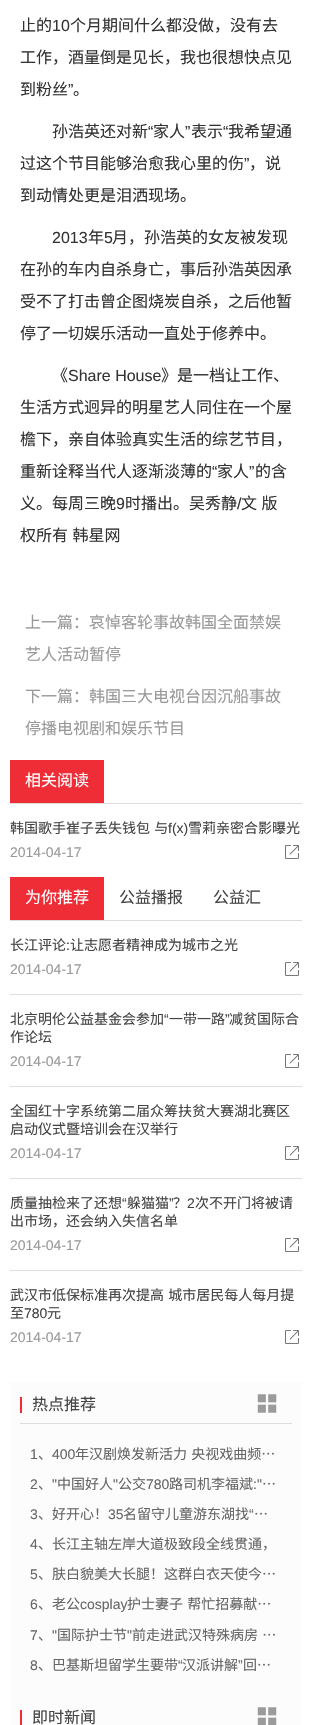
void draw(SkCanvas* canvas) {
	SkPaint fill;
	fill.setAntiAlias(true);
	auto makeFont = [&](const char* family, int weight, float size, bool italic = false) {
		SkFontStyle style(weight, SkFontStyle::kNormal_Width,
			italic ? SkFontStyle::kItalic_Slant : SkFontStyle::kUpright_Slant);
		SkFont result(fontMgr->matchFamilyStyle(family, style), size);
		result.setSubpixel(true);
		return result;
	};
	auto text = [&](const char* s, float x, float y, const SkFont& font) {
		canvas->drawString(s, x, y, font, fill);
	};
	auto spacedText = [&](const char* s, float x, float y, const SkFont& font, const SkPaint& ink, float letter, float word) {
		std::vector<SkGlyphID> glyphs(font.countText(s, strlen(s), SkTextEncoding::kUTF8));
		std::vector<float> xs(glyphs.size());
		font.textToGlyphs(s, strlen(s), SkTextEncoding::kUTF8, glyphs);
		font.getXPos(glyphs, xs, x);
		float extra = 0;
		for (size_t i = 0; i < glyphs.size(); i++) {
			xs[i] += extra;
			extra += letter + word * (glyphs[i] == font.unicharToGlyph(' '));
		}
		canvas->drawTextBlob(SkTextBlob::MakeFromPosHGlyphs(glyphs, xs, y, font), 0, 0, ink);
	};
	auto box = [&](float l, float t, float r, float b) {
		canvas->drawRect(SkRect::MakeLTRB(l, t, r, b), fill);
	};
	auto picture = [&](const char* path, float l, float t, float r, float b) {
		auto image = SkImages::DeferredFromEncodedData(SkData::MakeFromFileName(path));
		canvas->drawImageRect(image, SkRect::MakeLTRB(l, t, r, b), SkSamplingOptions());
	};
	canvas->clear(0xFFFFFFFF);
	fill.setColor(0xFFEF2D36);
	box(10, 760, 104, 803);
	fill.setColor(0xFFDDDDDD);
	box(10, 803, 302, 804);
	picture("image0.png", 285, 845, 299, 859);
	fill.setColor(0xFFEF2D36);
	box(10, 877, 104, 920);
	fill.setColor(0xFFDDDDDD);
	box(10, 920, 302, 921);
	picture("image0.png", 285, 962, 299, 976);
	box(10, 994, 302, 995);
	picture("image0.png", 285, 1054, 299, 1068);
	box(10, 1086, 302, 1087);
	picture("image0.png", 285, 1146, 299, 1160);
	box(10, 1178, 302, 1179);
	picture("image0.png", 285, 1238, 299, 1252);
	box(10, 1270, 302, 1271);
	picture("image0.png", 285, 1330, 299, 1344);
	fill.setColor(0xFFFCFCFC);
	box(10, 1382, 302, 1725);
	fill.setColor(0xFFDCDCDC);
	box(20, 1423, 292, 1424);
	fill.setColor(0xFFF02C38);
	box(20, 1397, 22, 1413);
	picture("image1.png", 257, 1394, 277, 1413);
	box(20, 1710, 22, 1725);
	picture("image2.png", 257, 1707, 277, 1725);
	auto font1 = makeFont("Noto Sans CJK SC", 400, 16);
	fill.setColor(0xFF333333);
	text("止的", 20, 31, font1);
	auto font2 = makeFont("Liberation Sans", 400, 16);
	text("10", 52, 31, font2);
	text("个月期间什么都没做，没有去", 70, 31, font1);
	text("工作，酒量倒是见长，我也很想快点见", 20, 63, font1);
	text("到粉丝", 20, 95, font1);
	text("”", 68, 95, font2);
	text("。", 73, 95, font1);
	text("孙浩英还对新", 52, 137, font1);
	text("“", 148, 137, font2);
	text("家人", 153, 137, font1);
	text("”", 185, 137, font2);
	text("表示", 191, 137, font1);
	text("“", 223, 137, font2);
	text("我希望通", 228, 137, font1);
	text("过这个节目能够治愈我心里的伤", 20, 169, font1);
	text("”", 244, 169, font2);
	text("，说", 249, 169, font1);
	text("到动情处更是泪洒现场。", 20, 201, font1);
	text("2013", 52, 243, font2);
	text("年", 88, 243, font1);
	text("5", 104, 243, font2);
	text("月，孙浩英的女友被发现", 112, 243, font1);
	text("在孙的车内自杀身亡，事后孙浩英因承", 20, 275, font1);
	text("受不了打击曾企图烧炭自杀，之后他暂", 20, 307, font1);
	text("停了一切娱乐活动一直处于修养中。", 20, 339, font1);
	text("《", 52, 381, font1);
	text("Share House", 68, 381, font2);
	text("》是一档让工作、", 161, 381, font1);
	text("生活方式迥异的明星艺人同住在一个屋", 20, 413, font1);
	text("檐下，亲自体验真实生活的综艺节目，", 20, 445, font1);
	text("重新诠释当代人逐渐淡薄的", 20, 477, font1);
	text("“", 212, 477, font2);
	text("家人", 217, 477, font1);
	text("”", 249, 477, font2);
	text("的含", 255, 477, font1);
	text("义。每周三晚", 20, 509, font1);
	text("9", 116, 509, font2);
	text("时播出。吴秀静", 125, 509, font1);
	text("/", 237, 509, font2);
	spacedText("文 版", 241, 509, font1, fill, 0, 1);
	spacedText("权所有 韩星网", 20, 541, font1, fill, 0, 1);
	fill.setColor(0xFF999999);
	text("上一篇：哀悼客轮事故韩国全面禁娱", 25, 628, font1);
	text("艺人活动暂停", 25, 660, font1);
	text("下一篇：韩国三大电视台因沉船事故", 25, 702, font1);
	text("停播电视剧和娱乐节目", 25, 734, font1);
	fill.setColor(0xFFFFFFFF);
	text("相关阅读", 25, 786, font1);
	auto font3 = makeFont("Noto Sans CJK SC", 400, 14);
	fill.setColor(0xFF444444);
	spacedText("韩国歌手崔子丢失钱包 与", 10, 833, font3, fill, 0, 1);
	auto font4 = makeFont("Liberation Sans", 400, 14);
	text("f(x)", 168, 833, font4);
	text("雪莉亲密合影曝光", 188, 833, font3);
	fill.setColor(0xFF999999);
	text("2014-04-17", 10, 857, font4);
	fill.setColor(0xFFFFFFFF);
	text("为你推荐", 25, 903, font1);
	fill.setColor(0xFF444444);
	text("公益播报", 119, 903, font1);
	text("公益汇", 213, 903, font1);
	text("长江评论", 10, 950, font3);
	text(":", 66, 950, font4);
	text("让志愿者精神成为城市之光", 70, 950, font3);
	fill.setColor(0xFF999999);
	text("2014-04-17", 10, 974, font4);
	fill.setColor(0xFF444444);
	text("北京明伦公益基金会参加", 10, 1024, font3);
	text("“", 164, 1024, font4);
	text("一带一路", 169, 1024, font3);
	text("”", 225, 1024, font4);
	text("减贫国际合", 229, 1024, font3);
	text("作论坛", 10, 1042, font3);
	fill.setColor(0xFF999999);
	text("2014-04-17", 10, 1066, font4);
	fill.setColor(0xFF444444);
	text("全国红十字系统第二届众筹扶贫大赛湖北赛区", 10, 1116, font3);
	text("启动仪式暨培训会在汉举行", 10, 1134, font3);
	fill.setColor(0xFF999999);
	text("2014-04-17", 10, 1158, font4);
	fill.setColor(0xFF444444);
	text("质量抽检来了还想", 10, 1208, font3);
	text("“", 122, 1208, font4);
	text("躲猫猫", 127, 1208, font3);
	text("”", 169, 1208, font4);
	text("？", 173, 1208, font3);
	text("2", 187, 1208, font4);
	text("次不开门将被请", 195, 1208, font3);
	text("出市场，还会纳入失信名单", 10, 1226, font3);
	fill.setColor(0xFF999999);
	text("2014-04-17", 10, 1250, font4);
	fill.setColor(0xFF444444);
	spacedText("武汉市低保标准再次提高 城市居民每人每月提", 10, 1300, font3, fill, 0, 1);
	text("至", 10, 1318, font3);
	text("780", 24, 1318, font4);
	text("元", 47, 1318, font3);
	fill.setColor(0xFF999999);
	text("2014-04-17", 10, 1342, font4);
	fill.setColor(0xFF444444);
	text("热点推荐", 32, 1410, font1);
	fill.setColor(0xFF666666);
	text("1", 30, 1459, font4);
	text("、", 38, 1459, font3);
	text("400", 52, 1459, font4);
	spacedText("年汉剧焕发新活力 央视戏曲频…", 75, 1459, font3, fill, 0, 1);
	text("2", 30, 1489, font4);
	text("\"", 52, 1489, font4);
	text("中国好人", 57, 1489, font3);
	text("\"", 113, 1489, font4);
	text("公交", 118, 1489, font3);
	text("780", 146, 1489, font4);
	text("路司机李福斌", 169, 1489, font3);
	text(":\"", 253, 1489, font4);
	text("…", 262, 1489, font3);
	text("、", 38, 1489, font3);
	text("3", 30, 1519, font4);
	text("、好开心！", 38, 1519, font3);
	text("35", 108, 1519, font4);
	text("名留守儿童游东湖找", 123, 1519, font3);
	text("“", 249, 1519, font4);
	text("…", 254, 1519, font3);
	text("4", 30, 1549, font4);
	text("、长江主轴左岸大道极致段全线贯通，", 38, 1549, font3);
	text("5", 30, 1579, font4);
	text("、肤白貌美大长腿！这群白衣天使今…", 38, 1579, font3);
	text("6", 30, 1609, font4);
	text("、老公", 38, 1609, font3);
	text("cosplay", 80, 1609, font4);
	spacedText("护士妻子 帮忙招募献…", 127, 1609, font3, fill, 0, 1);
	text("7", 30, 1640, font4);
	text("\"", 52, 1640, font4);
	text("国际护士节", 57, 1640, font3);
	text("\"", 127, 1640, font4);
	spacedText("前走进武汉特殊病房 …", 132, 1640, font3, fill, 0, 1);
	text("、", 38, 1640, font3);
	text("8", 30, 1670, font4);
	text("、巴基斯坦留学生要带", 38, 1670, font3);
	text("“", 178, 1670, font4);
	text("汉派讲解", 182, 1670, font3);
	text("”", 238, 1670, font4);
	text("回…", 243, 1670, font3);
	fill.setColor(0xFF444444);
	text("即时新闻", 32, 1723, font1);
}
